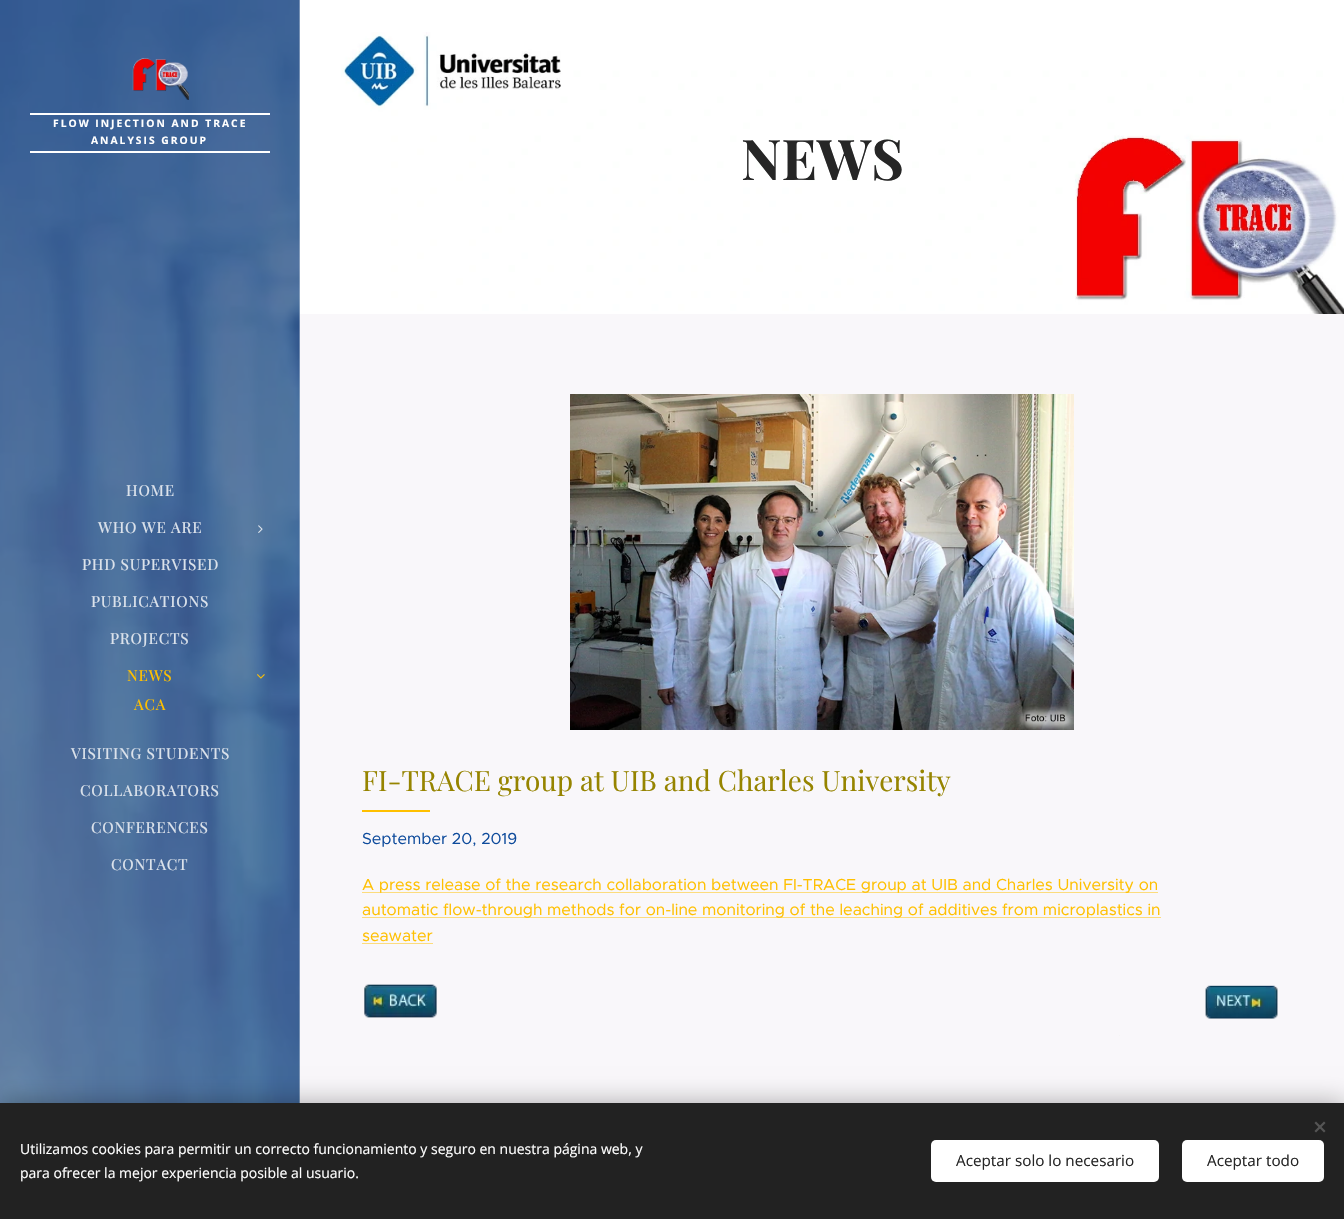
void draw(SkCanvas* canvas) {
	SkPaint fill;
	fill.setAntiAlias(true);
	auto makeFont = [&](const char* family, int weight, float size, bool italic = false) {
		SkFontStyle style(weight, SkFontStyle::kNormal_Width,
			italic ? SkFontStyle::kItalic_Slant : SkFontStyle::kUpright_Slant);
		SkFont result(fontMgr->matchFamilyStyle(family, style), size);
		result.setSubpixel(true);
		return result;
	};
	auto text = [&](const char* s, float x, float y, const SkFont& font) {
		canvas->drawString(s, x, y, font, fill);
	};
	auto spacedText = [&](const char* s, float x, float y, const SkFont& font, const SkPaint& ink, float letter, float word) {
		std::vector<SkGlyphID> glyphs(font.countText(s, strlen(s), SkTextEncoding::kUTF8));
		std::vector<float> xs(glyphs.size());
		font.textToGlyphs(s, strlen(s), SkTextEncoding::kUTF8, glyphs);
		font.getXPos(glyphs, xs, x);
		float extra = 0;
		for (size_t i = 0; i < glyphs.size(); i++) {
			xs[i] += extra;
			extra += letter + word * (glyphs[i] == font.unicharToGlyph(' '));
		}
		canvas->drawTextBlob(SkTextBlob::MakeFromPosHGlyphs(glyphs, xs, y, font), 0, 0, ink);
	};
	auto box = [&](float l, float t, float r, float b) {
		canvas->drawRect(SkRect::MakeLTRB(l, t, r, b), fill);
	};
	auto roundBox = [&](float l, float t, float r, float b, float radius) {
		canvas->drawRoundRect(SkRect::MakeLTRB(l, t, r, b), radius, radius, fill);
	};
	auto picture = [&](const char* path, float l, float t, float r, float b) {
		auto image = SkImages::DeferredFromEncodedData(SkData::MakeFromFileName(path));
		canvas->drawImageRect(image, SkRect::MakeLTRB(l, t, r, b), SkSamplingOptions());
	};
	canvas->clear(0xFFFFFFFF);
	picture("image0.png", 0, 0, 300, 1103);
	picture("image1.png", 132, 58, 189, 100);
	fill.setColor(0xFFFFFFFF);
	box(30, 113, 270, 115);
	box(30, 151, 270, 153);
	picture("image2.png", 258, 525, 263, 533);
	picture("image3.png", 257, 674, 265, 679);
	fill.setColor(0x4DFFFFFF);
	box(299, 0, 300, 1103);
	picture("image4.png", 341, 32, 1344, 314);
	fill.setColor(0xFFF9F7FA);
	box(300, 314, 1344, 1103);
	picture("image5.png", 570, 394, 1074, 730);
	fill.setColor(0xFFFFC000);
	box(362, 810, 430, 812);
	fill.setColor(0xFFFCDC7D);
	box(362, 892, 1158, 893);
	box(362, 917, 1161, 918);
	box(362, 943, 433, 944);
	picture("image6.png", 364, 984, 437, 1018);
	picture("image7.png", 1205, 985, 1278, 1019);
	fill.setColor(0xFFF5F5F5);
	box(1119, 1035, 1120, 1036);
	fill.setColor(0x54000000);
	fill.setMaskFilter(SkMaskFilter::MakeBlur(kNormal_SkBlurStyle, 12.5f));
	canvas->drawRect(SkRect::MakeLTRB(0, 1103, 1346, 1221), fill);
	fill.setMaskFilter(nullptr);
	fill.setColor(0xFF222222);
	box(0, 1103, 1344, 1219);
	fill.setColor(0xFF555555);
	canvas->drawPath(SkPathBuilder().moveTo(1314.5f, 1131).lineTo(1324, 1121.5f).lineTo(1325.5f, 1123).lineTo(1316, 1132.5f).close().detach(), fill);
	canvas->drawPath(SkPathBuilder().moveTo(1316, 1121.5f).lineTo(1325.5f, 1131).lineTo(1324, 1132.5f).lineTo(1314.5f, 1123).close().detach(), fill);
	fill.setColor(0xFFFFFFFF);
	roundBox(931, 1140, 1159, 1182, 5);
	roundBox(1182, 1140, 1324, 1182, 5);
	auto font1 = makeFont("Open Sans", 700, 10.3f);
	spacedText("FLOW INJECTION AND TRACE", 53, 127, font1, fill, 2, 0);
	spacedText("ANALYSIS GROUP", 91, 144, font1, fill, 2, 0);
	auto font2 = makeFont("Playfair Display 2", 400, 15.25f);
	fill.setColor(0xFFDBE2EB);
	spacedText("HOME", 126, 496, font2, fill, 0.75f, 0);
	spacedText("WHO WE ARE", 98, 533, font2, fill, 0.75f, 0);
	spacedText("PHD SUPERVISED", 82, 570, font2, fill, 0.75f, 0);
	spacedText("PUBLICATIONS", 91, 607, font2, fill, 0.75f, 0);
	spacedText("PROJECTS", 110, 644, font2, fill, 0.75f, 0);
	fill.setColor(0xFFFFC000);
	spacedText("NEWS", 127, 681, font2, fill, 0.75f, 0);
	spacedText("ACA", 134, 710, font2, fill, 0.75f, 0);
	fill.setColor(0xFFDBE2EB);
	spacedText("VISITING STUDENTS", 71, 759, font2, fill, 0.75f, 0);
	spacedText("COLLABORATORS", 80, 796, font2, fill, 0.75f, 0);
	spacedText("CONFERENCES", 91, 833, font2, fill, 0.75f, 0);
	spacedText("CONTACT", 111, 870, font2, fill, 0.75f, 0);
	auto font3 = makeFont("Playfair Display", 700, 56);
	fill.setColor(0xFF262626);
	text("NEWS", 741, 180, font3);
	auto font4 = makeFont("Playfair Display", 400, 28);
	fill.setColor(0xFF968400);
	text("FI-TRACE group at UIB and Charles University", 362, 791, font4);
	auto font5 = makeFont("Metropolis", 400, 16);
	fill.setColor(0xFF0E4B9C);
	text("September 20, 2019", 362, 844, font5);
	fill.setColor(0xFFFFC000);
	text("A press release of the research collaboration between FI-TRACE group at UIB and Charles University on", 362, 890, font5);
	text("automatic flow-through methods for on-line monitoring of the leaching of additives from microplastics in", 362, 915, font5);
	text("seawater", 362, 941, font5);
	auto font6 = makeFont("Open Sans", 400, 14);
	fill.setColor(0xFFFFFFFF);
	text("Utilizamos cookies para permitir un correcto funcionamiento y seguro en nuestra página web, y", 20, 1154, font6);
	text("para ofrecer la mejor experiencia posible al usuario.", 20, 1178, font6);
	auto font7 = makeFont("Open Sans", 400, 15.25f);
	fill.setColor(0xFF262626);
	text("Aceptar solo lo necesario", 956, 1166, font7);
	text("Aceptar todo", 1207, 1166, font7);
}
